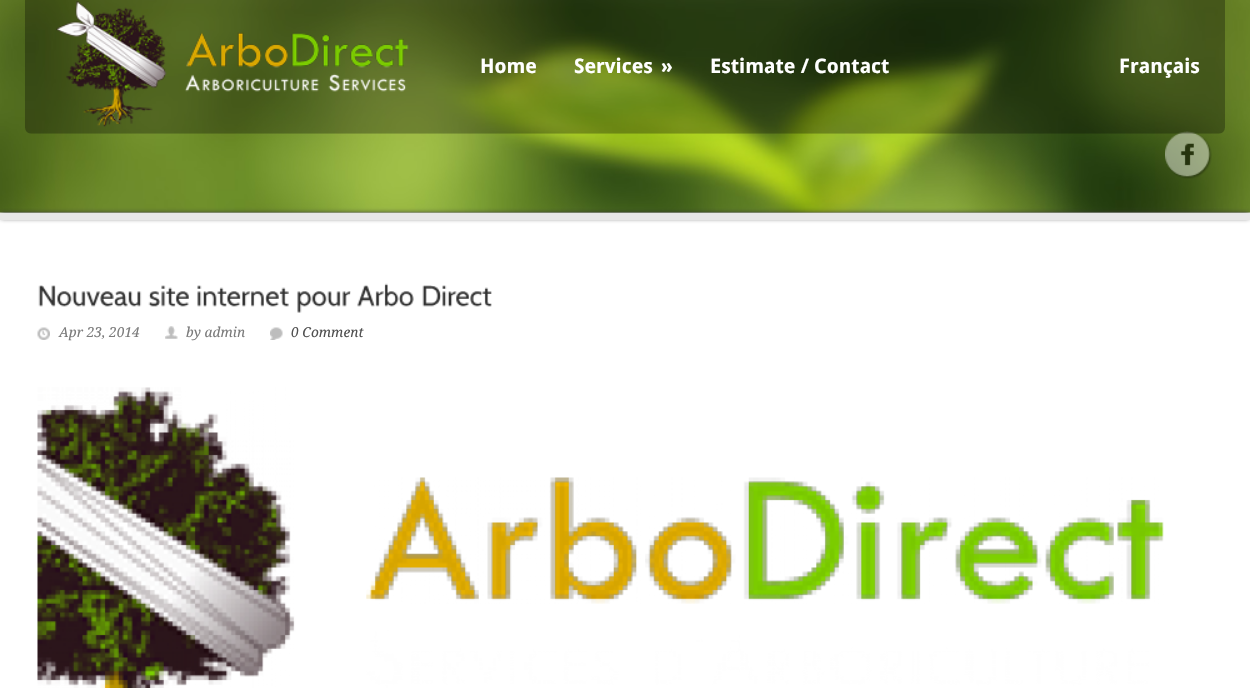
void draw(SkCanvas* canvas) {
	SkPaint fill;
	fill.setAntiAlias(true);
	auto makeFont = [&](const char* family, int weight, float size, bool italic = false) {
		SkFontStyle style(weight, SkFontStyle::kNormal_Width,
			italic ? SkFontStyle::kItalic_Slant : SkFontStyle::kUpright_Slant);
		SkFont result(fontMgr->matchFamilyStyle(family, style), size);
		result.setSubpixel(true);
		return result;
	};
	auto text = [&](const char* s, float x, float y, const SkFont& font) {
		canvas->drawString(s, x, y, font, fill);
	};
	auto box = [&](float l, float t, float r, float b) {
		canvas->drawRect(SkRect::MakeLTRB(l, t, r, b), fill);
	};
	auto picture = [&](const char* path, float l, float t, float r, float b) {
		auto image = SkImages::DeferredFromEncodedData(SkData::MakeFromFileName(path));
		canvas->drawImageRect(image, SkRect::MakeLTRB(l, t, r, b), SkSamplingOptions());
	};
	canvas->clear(0xFFFFFFFF);
	picture("image0.png", 0, 0, 1250, 213);
	picture("image3.png", 1165, 131, 1212, 179);
	picture("image1.png", 25, 0, 1225, 134);
	picture("image2.png", 56, 1, 409, 127);
	fill.setColor(0xFF333333);
	fill.setMaskFilter(SkMaskFilter::MakeBlur(kNormal_SkBlurStyle, 2.5f));
	canvas->drawRect(SkRect::MakeLTRB(1, 213, 1249, 218), fill);
	fill.setMaskFilter(nullptr);
	fill.setColor(0xFFE7E7E7);
	box(0, 213, 1250, 220);
	picture("image4.png", 38, 285, 142, 307);
	picture("image5.png", 148, 285, 189, 307);
	picture("image6.png", 197, 285, 289, 307);
	picture("image7.png", 297, 291, 351, 313);
	picture("image8.png", 357, 283, 414, 307);
	picture("image9.png", 422, 285, 492, 307);
	picture("image10.png", 37, 327, 50, 340);
	picture("image11.png", 165, 326, 178, 339);
	picture("image12.png", 270, 327, 283, 340);
	picture("image13.png", 37, 387, 1164, 688);
	auto font1 = makeFont("Droid Sans", 700, 20);
	fill.setColor(0xFFFFFFFF);
	text("Home", 480, 73, font1);
	text("Services", 574, 73, font1);
	text("»", 661, 73, font1);
	text("Estimate / Contact", 710, 73, font1);
	text("Français", 1119, 73, font1);
	auto font2 = makeFont("Droid Serif", 400, 13.75f, true);
	fill.setColor(0xFF7B7B7B);
	text("Apr 23, 2014", 59, 337, font2);
	text("by admin", 186, 337, font2);
	fill.setColor(0xFF4F4F4F);
	text("0 Comment", 291, 337, font2);
}
